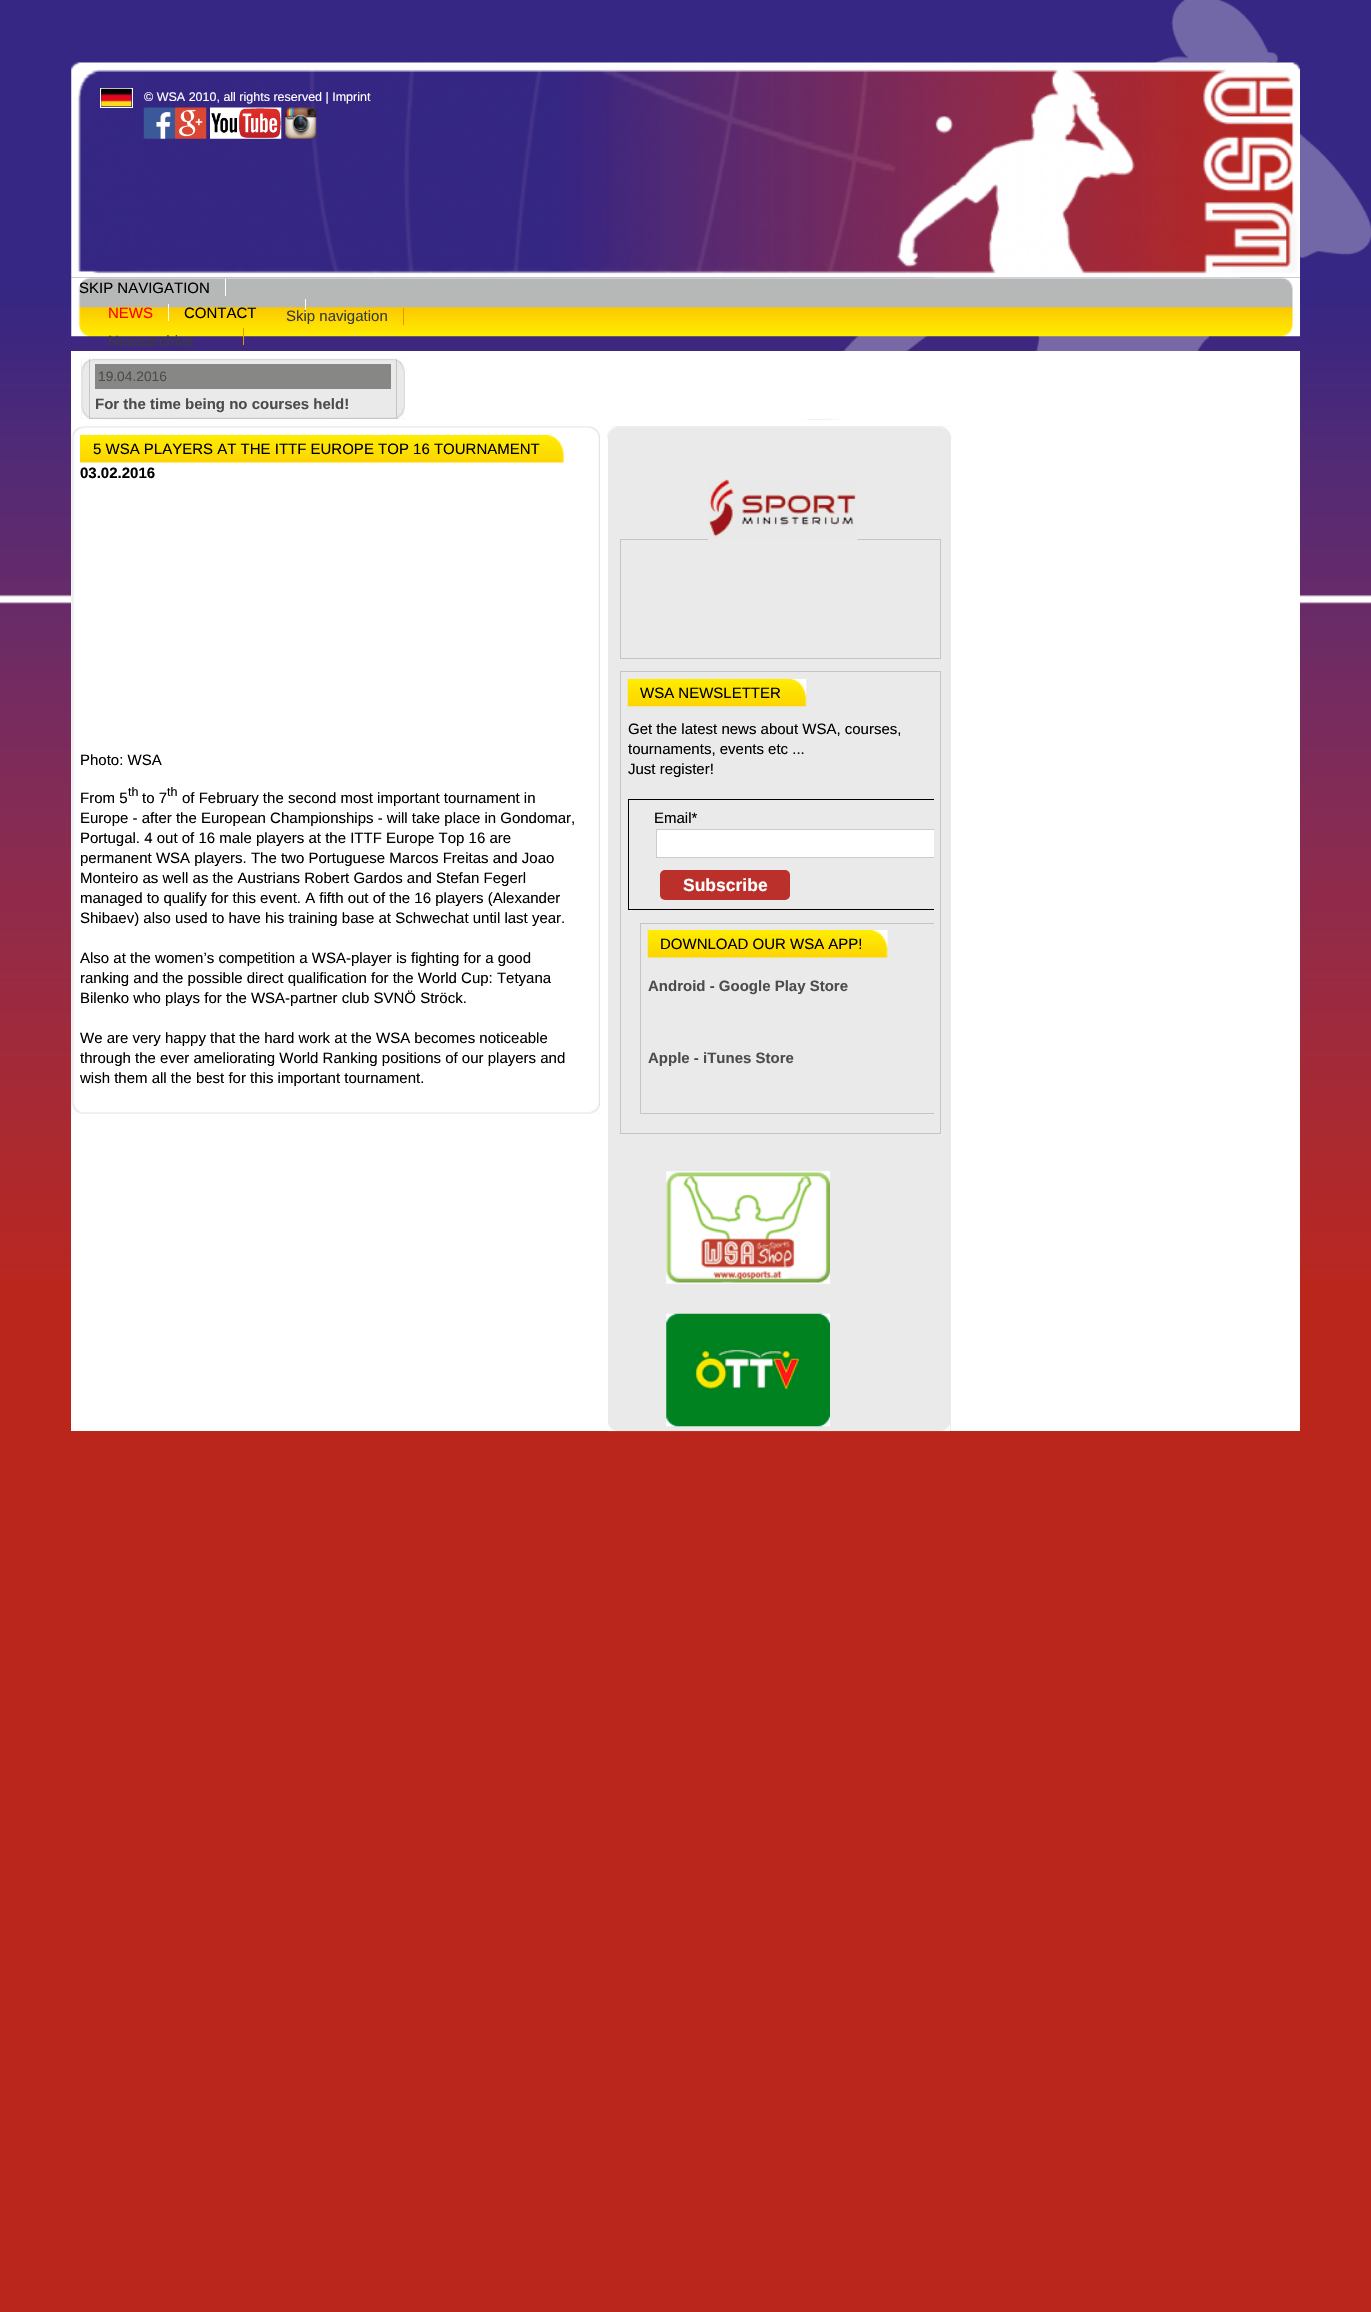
void draw(SkCanvas* canvas) {
	SkPaint fill;
	fill.setAntiAlias(true);
	auto makeFont = [&](const char* family, int weight, float size, bool italic = false) {
		SkFontStyle style(weight, SkFontStyle::kNormal_Width,
			italic ? SkFontStyle::kItalic_Slant : SkFontStyle::kUpright_Slant);
		SkFont result(fontMgr->matchFamilyStyle(family, style), size);
		result.setSubpixel(true);
		return result;
	};
	auto text = [&](const char* s, float x, float y, const SkFont& font) {
		canvas->drawString(s, x, y, font, fill);
	};
	auto box = [&](float l, float t, float r, float b) {
		canvas->drawRect(SkRect::MakeLTRB(l, t, r, b), fill);
	};
	auto roundBox = [&](float l, float t, float r, float b, float radius) {
		canvas->drawRoundRect(SkRect::MakeLTRB(l, t, r, b), radius, radius, fill);
	};
	auto picture = [&](const char* path, float l, float t, float r, float b) {
		auto image = SkImages::DeferredFromEncodedData(SkData::MakeFromFileName(path));
		canvas->drawImageRect(image, SkRect::MakeLTRB(l, t, r, b), SkSamplingOptions());
	};
	canvas->clear(0xFFBB261C);
	picture("image0.png", 0, 0, 1371, 1278);
	picture("image1.png", 789, 0, 1371, 595);
	picture("image8.png", 71, 277, 1300, 337);
	picture("image2.png", 71, 62, 1300, 278);
	fill.setStyle(SkPaint::kStroke_Style);
	fill.setStrokeWidth(1);
	fill.setColor(0xFFFFFFFF);
	canvas->drawRect(SkRect::MakeLTRB(100.5f, 88.5f, 132.5f, 107.5f), fill);
	picture("image3.png", 101, 88, 132, 107);
	picture("image4.png", 143, 107, 175, 139);
	picture("image5.png", 175, 107, 207, 139);
	picture("image6.png", 210, 107, 282, 139);
	picture("image7.png", 285, 107, 317, 139);
	fill.setStyle(SkPaint::kFill_Style);
	box(225, 279, 226, 296);
	box(168, 304, 169, 321);
	box(305, 299, 306, 316);
	fill.setColor(0xFFF28E00);
	box(403, 308, 404, 325);
	box(243, 328, 244, 345);
	fill.setColor(0xFFFFFFFF);
	box(71, 351, 1300, 1431);
	picture("image9.png", 81, 358, 405, 419);
	picture("image10.png", 81, 359, 405, 372);
	picture("image11.png", 81, 405, 405, 419);
	fill.setColor(0xFFC5C5C4);
	box(396, 359, 397, 419);
	box(89, 418, 398, 419);
	box(89, 359, 90, 419);
	fill.setColor(0xFF878786);
	box(95, 364, 391, 389);
	picture("image12.png", 109, 419, 840, 420);
	picture("image13.png", 71, 426, 600, 1114);
	picture("image14.png", 71, 426, 600, 438);
	picture("image15.png", 71, 1104, 600, 1114);
	picture("image16.png", 80, 435, 564, 463);
	fill.setColor(0xFFE9EAE9);
	box(608, 426, 951, 1431);
	picture("image17.png", 607, 426, 952, 439);
	picture("image18.png", 607, 1422, 950, 1432);
	fill.setStyle(SkPaint::kStroke_Style);
	fill.setColor(0xFFC5C5C4);
	canvas->drawRect(SkRect::MakeLTRB(620.5f, 539.5f, 940.5f, 658.5f), fill);
	picture("image19.png", 707, 479, 858, 540);
	canvas->drawRect(SkRect::MakeLTRB(620.5f, 671.5f, 940.5f, 1133.5f), fill);
	picture("image20.png", 627, 678, 807, 707);
	canvas->save();
	canvas->clipRect(SkRect::MakeLTRB(628, 679, 934, 1126));
	fill.setColor(0xFF000000);
	canvas->drawRect(SkRect::MakeLTRB(628.5f, 799.5f, 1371.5f, 909.5f), fill);
	canvas->restore();
	fill.setStyle(SkPaint::kFill_Style);
	fill.setColor(0xFFFFFFFF);
	box(657, 830, 934, 857);
	canvas->save();
	canvas->clipRect(SkRect::MakeLTRB(628, 679, 934, 1126));
	fill.setStyle(SkPaint::kStroke_Style);
	fill.setColor(0xFFCCCCCC);
	canvas->drawRect(SkRect::MakeLTRB(656.5f, 829.5f, 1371.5f, 857.5f), fill);
	canvas->restore();
	fill.setStyle(SkPaint::kFill_Style);
	fill.setColor(0xFFBC302B);
	roundBox(660, 870, 790, 900, 5);
	canvas->save();
	canvas->clipRect(SkRect::MakeLTRB(628, 679, 934, 1126));
	fill.setStyle(SkPaint::kStroke_Style);
	fill.setColor(0xFFC5C5C4);
	canvas->drawRect(SkRect::MakeLTRB(640.5f, 923.5f, 960.5f, 1113.5f), fill);
	canvas->restore();
	picture("image21.png", 647, 930, 888, 958);
	picture("image22.png", 666, 1171, 830, 1284);
	picture("image23.png", 666, 1313, 830, 1427);
	auto font1 = makeFont("Liberation Sans", 400, 12.5f);
	fill.setStyle(SkPaint::kFill_Style);
	fill.setColor(0xFFFFFFFF);
	text("© WSA 2010, all rights reserved | Imprint", 144, 101, font1);
	auto font2 = makeFont("Liberation Sans", 400, 15);
	fill.setColor(0xFF000000);
	text("SKIP NAVIGATION", 79, 293, font2);
	fill.setColor(0xFFFF0000);
	text("NEWS", 108, 318, font2);
	fill.setColor(0xFF000000);
	text("CONTACT", 184, 318, font2);
	fill.setColor(0xFF3B3B3B);
	text("Skip navigation", 286, 321, font2);
	text("Newsarchive", 108, 346, font2);
	auto font3 = makeFont("Liberation Sans", 400, 13.75f);
	fill.setColor(0xFF4C4C4C);
	text("19.04.2016", 98, 381, font3);
	auto font4 = makeFont("Liberation Sans", 700, 15);
	text("For the time being no courses held!", 95, 409, font4);
	fill.setColor(0xFF000000);
	text("5 WSA PLAYERS AT THE ITTF EUROPE TOP 16 TOURNAMENT", 93, 454, font2);
	text("03.02.2016", 80, 478, font4);
	text("Photo: WSA", 80, 765, font2);
	text("From 5", 80, 803, font2);
	text("th", 128, 796, font1);
	text("to 7", 142, 803, font2);
	text("th", 167, 796, font1);
	text("of February the second most important tournament in", 182, 803, font2);
	text("Europe - after the European Championships - will take place in Gondomar,", 80, 823, font2);
	text("Portugal. 4 out of 16 male players at the ITTF Europe Top 16 are", 80, 843, font2);
	text("permanent WSA players. The two Portuguese Marcos Freitas and Joao", 80, 863, font2);
	text("Monteiro as well as the Austrians Robert Gardos and Stefan Fegerl", 80, 883, font2);
	text("managed to qualify for this event. A fifth out of the 16 players (Alexander", 80, 903, font2);
	text("Shibaev) also used to have his training base at Schwechat until last year.", 80, 923, font2);
	text("Also at the women’s competition a WSA-player is fighting for a good", 80, 963, font2);
	text("ranking and the possible direct qualification for the World Cup: Tetyana", 80, 983, font2);
	text("Bilenko who plays for the WSA-partner club SVNÖ Ströck.", 80, 1003, font2);
	text("We are very happy that the hard work at the WSA becomes noticeable", 80, 1043, font2);
	text("through the ever ameliorating World Ranking positions of our players and", 80, 1063, font2);
	text("wish them all the best for this important tournament.", 80, 1083, font2);
	text("WSA NEWSLETTER", 640, 698, font2);
	text("Get the latest news about WSA, courses,", 628, 734, font2);
	text("tournaments, events etc ...", 628, 754, font2);
	text("Just register!", 628, 774, font2);
	text("Email*", 654, 823, font2);
	auto font5 = makeFont("Liberation Sans", 700, 17.5f);
	fill.setColor(0xFFFFFFFF);
	text("Subscribe", 683, 891, font5);
	fill.setColor(0xFF000000);
	text("DOWNLOAD OUR WSA APP!", 660, 949, font2);
	fill.setColor(0xFF4C4C4C);
	text("Android - Google Play Store", 648, 991, font4);
	text("Apple - iTunes Store", 648, 1063, font4);
}
